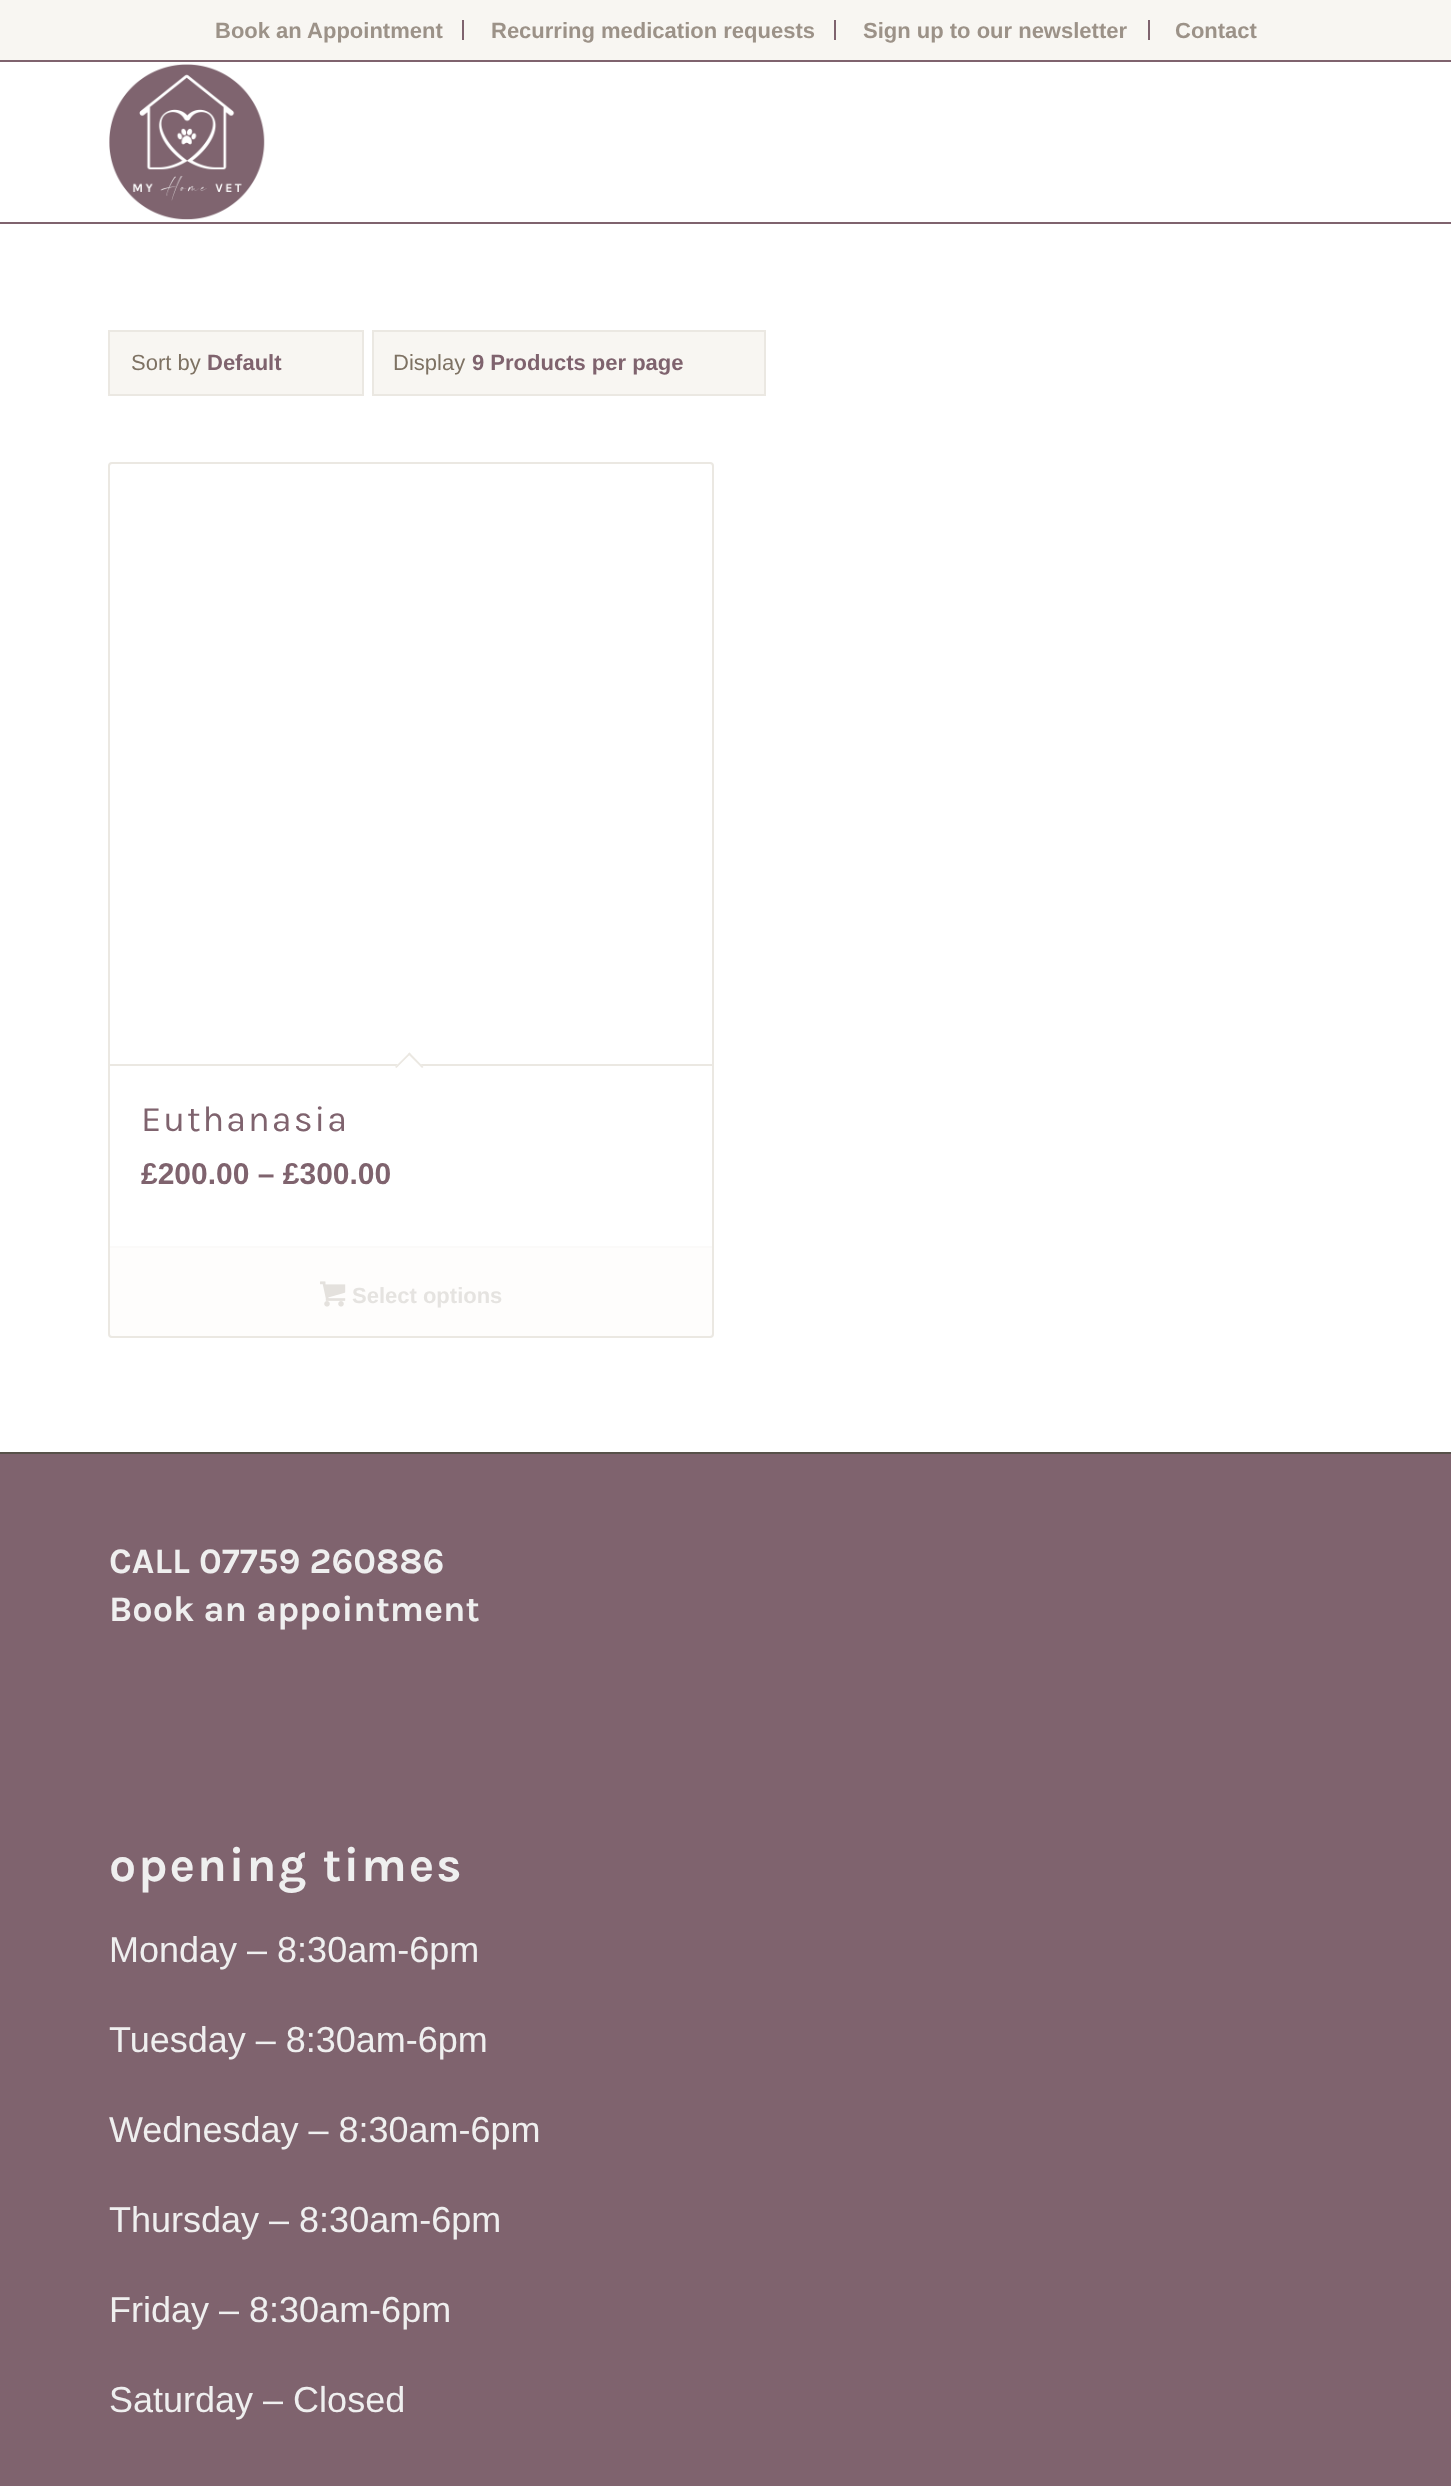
async function draw(canvas) {
  canvas.width = 1451
  canvas.height = 2486
  const ctx = canvas.getContext('2d')
  ctx.miterLimit = 4
  ctx.fontKerning = 'normal'
  async function loadImage(src) {
    const img = new Image()
    img.src = src
    await img.decode()
    return img
  }

  ctx.fillStyle = '#fff'
  ctx.fillRect(0, 0, 1451, 2486)
  ctx.fillStyle = '#f8f6f2'
  ctx.fillRect(0, 0, 1451, 60)
  ctx.fillStyle = '#7f636e'
  ctx.fillRect(0, 60, 1451, 2)
  ctx.fillRect(462, 20, 2, 20)
  ctx.font = 'bold 22px Liberation Sans'
  ctx.fillStyle = '#9c9288'
  ctx.fillText('Book an Appointment', 215, 38)
  ctx.fillStyle = '#7f636e'
  ctx.fillRect(834, 20, 2, 20)
  ctx.fillStyle = '#9c9288'
  ctx.fillText('Recurring medication requests', 491, 38)
  ctx.fillStyle = '#7f636e'
  ctx.fillRect(1148, 20, 2, 20)
  ctx.fillStyle = '#9c9288'
  ctx.fillText('Sign up to our newsletter', 863, 38)
  ctx.fillText('Contact', 1175, 38)
  ctx.fillStyle = '#7f636e'
  ctx.fillRect(0, 222, 1451, 2)
  ctx.drawImage(await loadImage('image0.png'), 109, 64, 156, 156)
  ctx.fillStyle = '#f8f6f2'
  ctx.beginPath()
  ctx.rect(109, 331, 254, 64)
  ctx.fill()
  ctx.strokeStyle = '#ebe8e2'
  ctx.lineWidth = 2
  ctx.stroke()
  ctx.font = '22px Liberation Sans'
  ctx.fillStyle = '#7e7263'
  ctx.fillText('Sort by', 131, 370)
  ctx.font = 'bold 22px Liberation Sans'
  ctx.fillStyle = '#7f636e'
  ctx.fillText('Default', 207, 370)
  ctx.fillStyle = '#f8f6f2'
  ctx.beginPath()
  ctx.rect(373, 331, 392, 64)
  ctx.fill()
  ctx.stroke()
  ctx.font = '22px Liberation Sans'
  ctx.fillStyle = '#7e7263'
  ctx.fillText('Display', 393, 370)
  ctx.font = 'bold 22px Liberation Sans'
  ctx.fillStyle = '#7f636e'
  ctx.fillText('9 Products per page', 472, 370)
  ctx.beginPath()
  ctx.roundRect(109, 463, 604, 874, 3)
  ctx.stroke()
  ctx.fillStyle = '#ebe8e2'
  ctx.fillRect(110, 1064, 602, 2)
  ctx.fillStyle = '#fff'
  ctx.beginPath()
  ctx.moveTo(409.5, 1052.5)
  ctx.lineTo(423.5, 1067)
  ctx.lineTo(409.5, 1081)
  ctx.lineTo(395, 1067)
  ctx.closePath()
  ctx.fill()
  ctx.fillStyle = '#ebe8e2'
  ctx.beginPath()
  ctx.moveTo(409.5, 1052.5)
  ctx.lineTo(423.5, 1067)
  ctx.lineTo(422, 1068)
  ctx.lineTo(408, 1054)
  ctx.closePath()
  ctx.fill()
  ctx.beginPath()
  ctx.moveTo(409.5, 1052.5)
  ctx.lineTo(410.5, 1054)
  ctx.lineTo(396.5, 1068)
  ctx.lineTo(395, 1067)
  ctx.closePath()
  ctx.fill()
  ctx.letterSpacing = '2px'
  ctx.font = '36px Karla'
  ctx.fillStyle = '#7f636e'
  ctx.fillText('Euthanasia', 141, 1131)
  ctx.letterSpacing = '0px'
  ctx.font = 'bold 30px Liberation Sans'
  ctx.fillText('£200.00 – £300.00', 141, 1184)
  ctx.fillStyle = '#f8f6f233'
  ctx.beginPath()
  ctx.roundRect(110, 1246, 602, 90, [0, 0, 2, 2])
  ctx.fill()
  ctx.fillStyle = '#fbfaf9'
  ctx.fillRect(110, 1246, 602, 2)
  ctx.drawImage(await loadImage('image1.png'), 320, 1281, 26, 26)
  ctx.font = 'bold 22px Liberation Sans'
  ctx.fillStyle = '#e5e3e0'
  ctx.fillText('Select options', 352, 1303)
  ctx.fillStyle = '#7f636e'
  ctx.fillRect(0, 1454, 1451, 1032)
  ctx.fillStyle = '#575149'
  ctx.fillRect(0, 1452, 1451, 2)
  ctx.font = 'bold 36px Karla'
  ctx.fillStyle = '#efefef'
  ctx.fillText('CALL 07759 260886', 109, 1573)
  ctx.fillText('Book an appointment', 109, 1621)
  ctx.letterSpacing = '2px'
  ctx.font = 'bold 48px Karla'
  ctx.fillText('opening times', 109, 1881)
  ctx.letterSpacing = '0px'
  ctx.font = '36px Liberation Sans'
  ctx.fillText('Monday – 8:30am-6pm', 109, 1962)
  ctx.fillText('Tuesday – 8:30am-6pm', 109, 2052)
  ctx.fillText('Wednesday – 8:30am-6pm', 109, 2142)
  ctx.fillText('Thursday – 8:30am-6pm', 109, 2232)
  ctx.fillText('Friday – 8:30am-6pm', 109, 2322)
  ctx.fillText('Saturday – Closed', 109, 2412)
}

draw(document.querySelector('canvas'))
